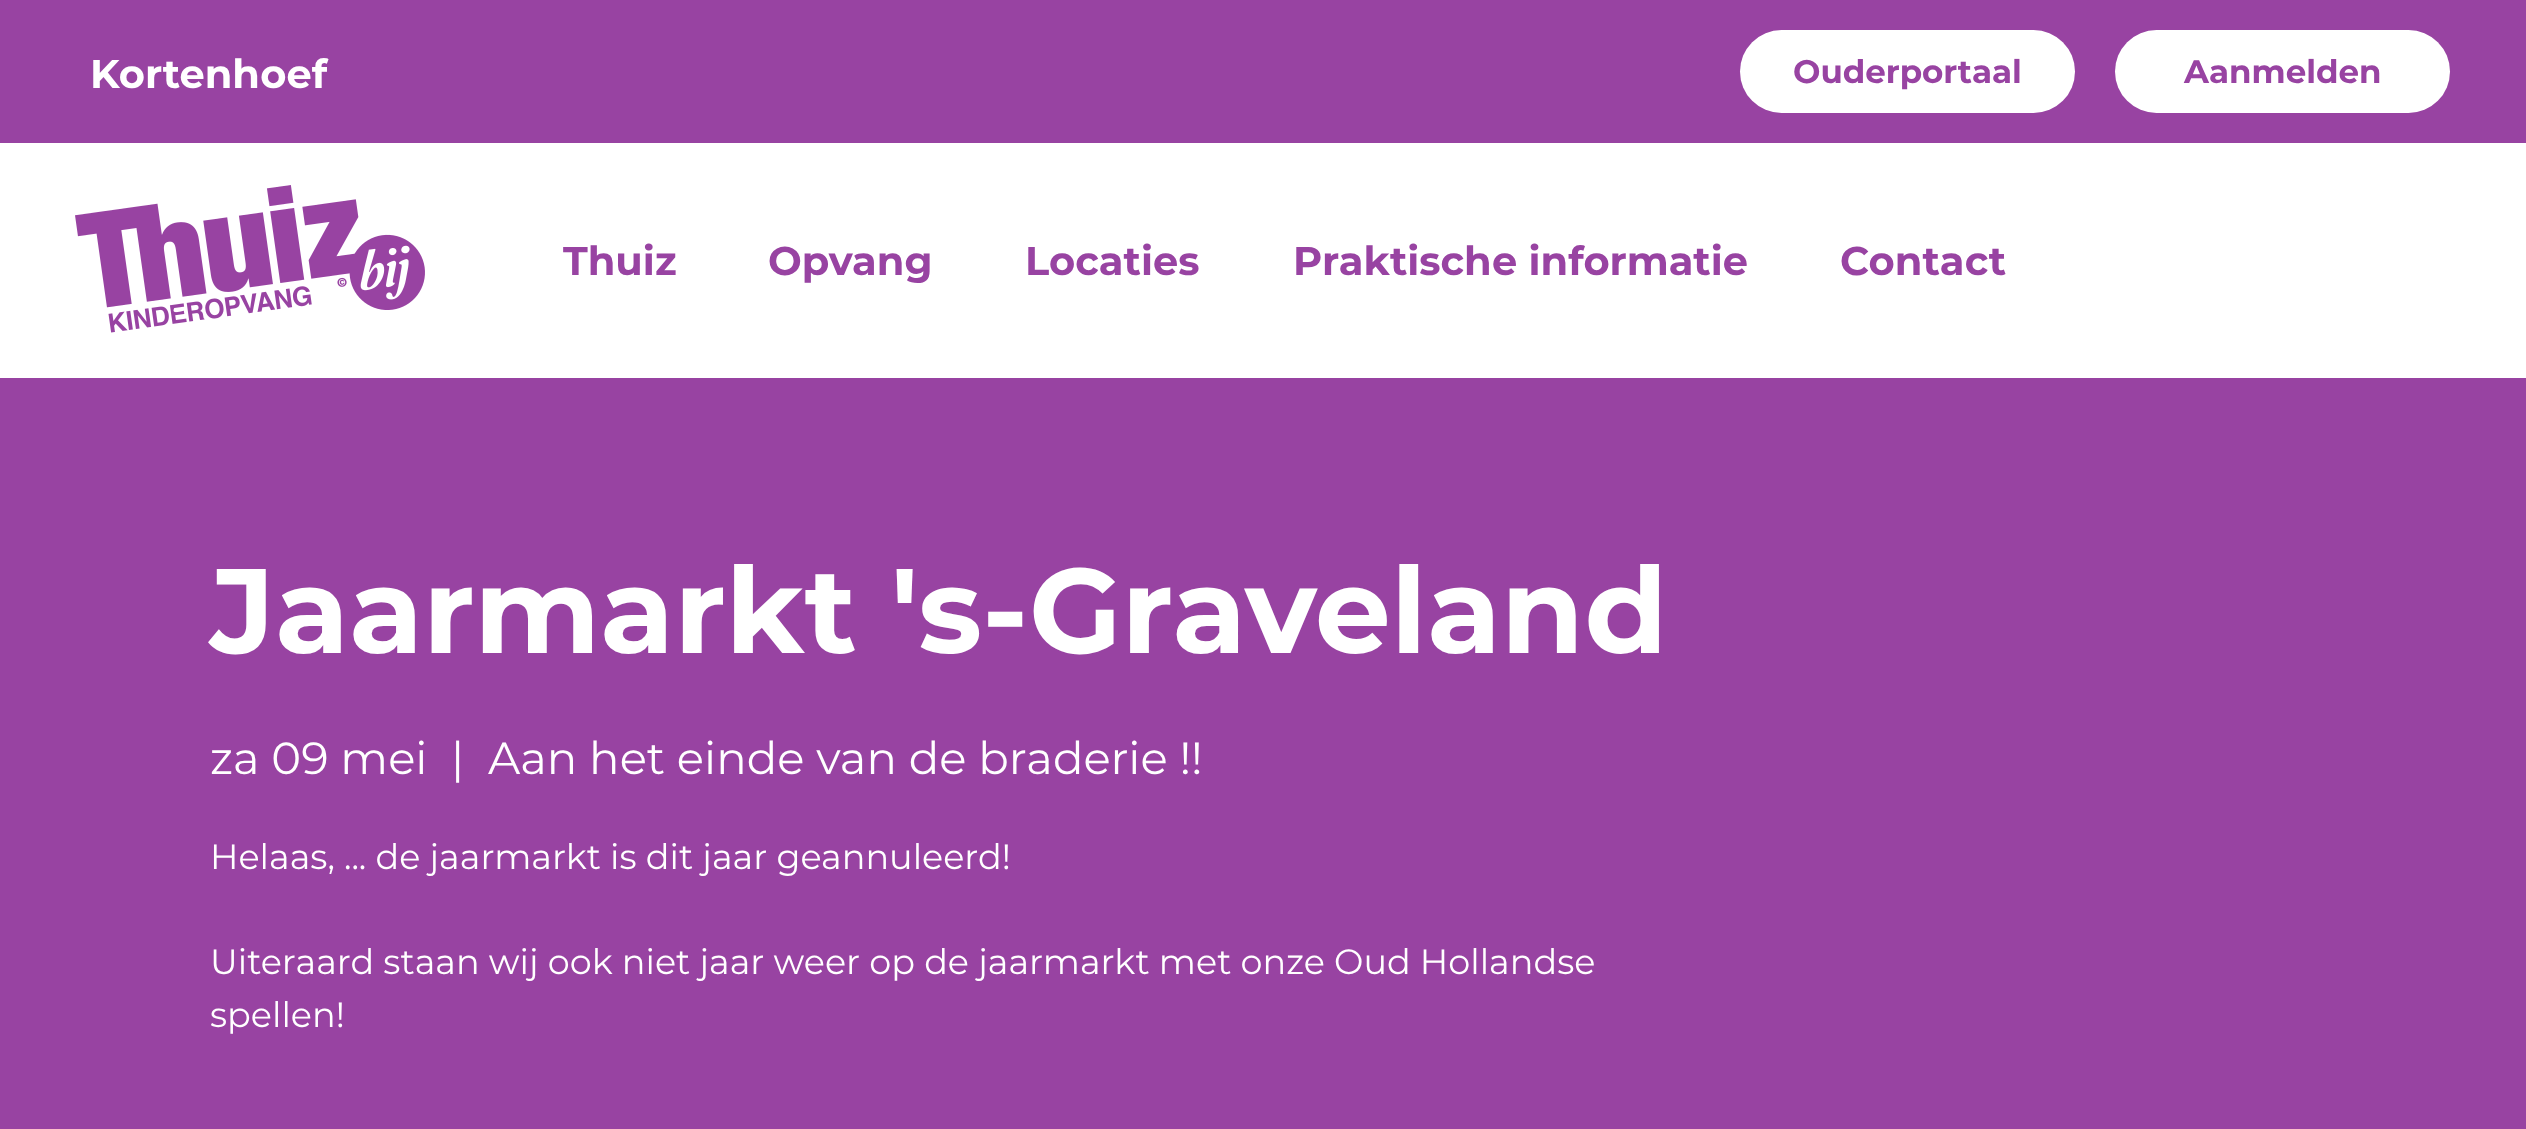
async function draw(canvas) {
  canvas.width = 2526
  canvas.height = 1129
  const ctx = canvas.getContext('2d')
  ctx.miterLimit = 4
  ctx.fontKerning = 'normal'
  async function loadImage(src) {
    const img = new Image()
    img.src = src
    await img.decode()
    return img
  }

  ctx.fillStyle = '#fff'
  ctx.fillRect(0, 0, 2526, 1129)
  ctx.fillStyle = '#9843a2'
  ctx.fillRect(0, 0, 2526, 143)
  ctx.font = 'bold 40px Montserrat'
  ctx.fillStyle = '#fff'
  ctx.fillText('Kortenhoef', 90, 88)
  ctx.beginPath()
  ctx.roundRect(1740, 30, 335, 83, 41.5)
  ctx.fill()
  ctx.font = 'bold 32.5px Montserrat'
  ctx.fillStyle = '#9843a2'
  ctx.fillText('Ouderportaal', 1793, 83)
  ctx.fillStyle = '#fff'
  ctx.beginPath()
  ctx.roundRect(2115, 30, 335, 83, 41.5)
  ctx.fill()
  ctx.fillStyle = '#9843a2'
  ctx.fillText('Aanmelden', 2184, 83)
  ctx.drawImage(await loadImage('image0.png'), 75, 185, 350, 148)
  ctx.font = 'bold 40px Montserrat'
  ctx.fillText('Thuiz', 563, 275)
  ctx.fillText('Opvang', 768, 275)
  ctx.fillText('Locaties', 1025, 275)
  ctx.fillText('Praktische informatie', 1293, 275)
  ctx.fillText('Contact', 1840, 275)
  ctx.fillRect(0, 378, 2526, 751)
  ctx.font = 'bold 120px Montserrat'
  ctx.fillStyle = '#fff'
  ctx.fillText('Jaarmarkt \'s-Graveland', 210, 653)
  ctx.font = '45px Montserrat'
  ctx.fillText('za 09 mei', 210, 774)
  ctx.fillText('|', 451, 774)
  ctx.fillText('Aan het einde van de braderie !!', 488, 774)
  ctx.font = '35px Montserrat'
  ctx.fillText('Helaas, ... de jaarmarkt is dit jaar geannuleerd!', 210, 869)
  ctx.fillText('Uiteraard staan wij ook niet jaar weer op de jaarmarkt met onze Oud Hollandse', 210, 974)
  ctx.fillText('spellen!', 210, 1027)
}

draw(document.querySelector('canvas'))
